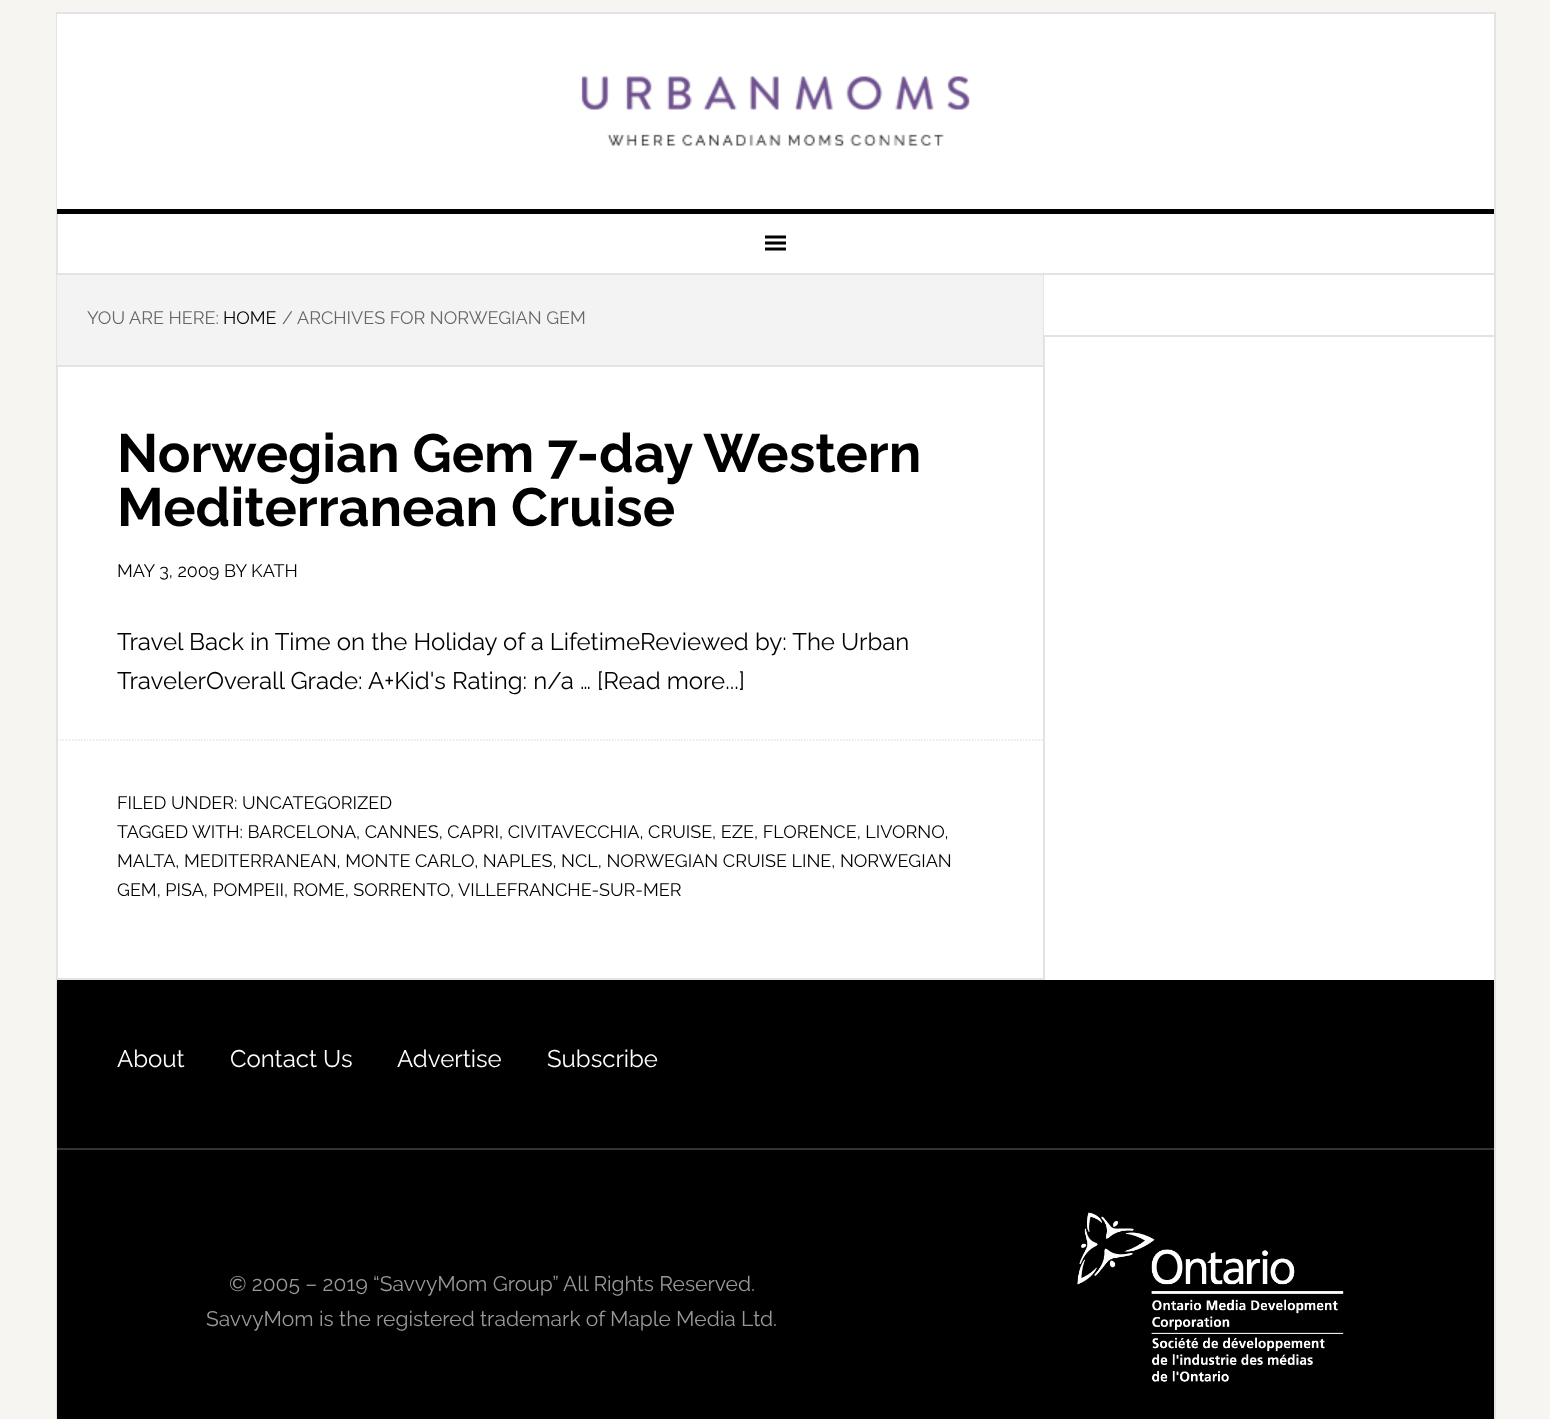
async function draw(canvas) {
  canvas.width = 1550
  canvas.height = 1419
  const ctx = canvas.getContext('2d')
  ctx.miterLimit = 4
  ctx.fontKerning = 'normal'
  async function loadImage(src) {
    const img = new Image()
    img.src = src
    await img.decode()
    return img
  }

  ctx.fillStyle = '#f6f5f2'
  ctx.fillRect(0, 0, 1550, 1419)
  ctx.fillStyle = '#fff'
  ctx.fillRect(58, 214, 1436, 766)
  ctx.strokeStyle = '#e3e3e3'
  ctx.lineWidth = 2
  ctx.strokeRect(57, 13, 1438, 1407)
  ctx.fillRect(57, 14, 1437, 195)
  ctx.fillStyle = '#000'
  ctx.fillRect(57, 209, 1437, 5)
  ctx.drawImage(await loadImage('image0.png'), 581, 76, 389, 70)
  ctx.fillStyle = '#e3e3e3'
  ctx.fillRect(57, 273, 1437, 2)
  ctx.drawImage(await loadImage('image1.png'), 765, 235, 21, 16)
  ctx.fillRect(1043, 275, 2, 705)
  ctx.fillStyle = '#f3f3f3'
  ctx.fillRect(57, 275, 986, 90)
  ctx.fillStyle = '#e3e3e3'
  ctx.fillRect(57, 365, 986, 2)
  ctx.font = '18px Raleway'
  ctx.fillStyle = '#666'
  ctx.fillText('YOU ARE HERE:', 87, 324)
  ctx.fillStyle = '#000'
  ctx.fillText('HOME', 223, 324)
  ctx.fillStyle = '#666'
  ctx.fillText('/', 282, 324)
  ctx.fillText('ARCHIVES FOR NORWEGIAN GEM', 297, 324)
  ctx.fillStyle = '#e3e3e3'
  ctx.fillRect(57, 978, 986, 2)
  ctx.font = 'bold 54px Raleway'
  ctx.fillStyle = '#000'
  ctx.fillText('Norwegian Gem 7-day Western', 117, 472)
  ctx.fillText('Mediterranean Cruise', 117, 526)
  ctx.font = '18px Raleway'
  ctx.fillText('MAY 3, 2009 BY KATH', 117, 577)
  ctx.font = '24px Raleway'
  ctx.fillText('Travel Back in Time on the Holiday of a LifetimeReviewed by: The Urban', 117, 650)
  ctx.fillText('TravelerOverall Grade: A+Kid\'s Rating: n/a … [Read more...]', 117, 689)
  ctx.beginPath()
  ctx.moveTo(57, 740)
  ctx.lineTo(1042.5, 740)
  ctx.lineWidth = 1.5
  ctx.setLineDash([1.5, 1.5])
  ctx.stroke()
  ctx.font = '18px Raleway'
  ctx.fillText('FILED UNDER: UNCATEGORIZED', 117, 809)
  ctx.fillText('TAGGED WITH: BARCELONA, CANNES, CAPRI, CIVITAVECCHIA, CRUISE, EZE, FLORENCE, LIVORNO,', 117, 838)
  ctx.fillText('MALTA, MEDITERRANEAN, MONTE CARLO, NAPLES, NCL, NORWEGIAN CRUISE LINE, NORWEGIAN', 117, 867)
  ctx.fillText('GEM, PISA, POMPEII, ROME, SORRENTO,', 117, 896)
  ctx.fillText('VILLEFRANCHE-SUR-MER', 458, 896)
  ctx.fillStyle = '#fff'
  ctx.fillRect(1044, 275, 1, 60)
  ctx.fillStyle = '#e3e3e3'
  ctx.fillRect(1044, 335, 450, 2)
  ctx.fillStyle = '#000'
  ctx.fillRect(57, 980, 1437, 168)
  ctx.font = '24px Raleway'
  ctx.fillStyle = '#fff'
  ctx.fillText('About', 117, 1067)
  ctx.fillText('Contact Us', 230, 1067)
  ctx.fillText('Advertise', 397, 1067)
  ctx.fillText('Subscribe', 547, 1067)
  ctx.fillStyle = '#000'
  ctx.fillRect(57, 1150, 1437, 269)
  ctx.fillStyle = '#333'
  ctx.fillRect(57, 1148, 1437, 2)
  ctx.font = '21px Raleway'
  ctx.fillStyle = '#999'
  ctx.fillText('© 2005 – 2019 “SavvyMom Group” All Rights Reserved.', 229, 1291)
  ctx.fillText('SavvyMom is the registered trademark of Maple Media Ltd.', 206, 1326)
  ctx.drawImage(await loadImage('image2.png'), 1077, 1212, 267, 170)
}

draw(document.querySelector('canvas'))
